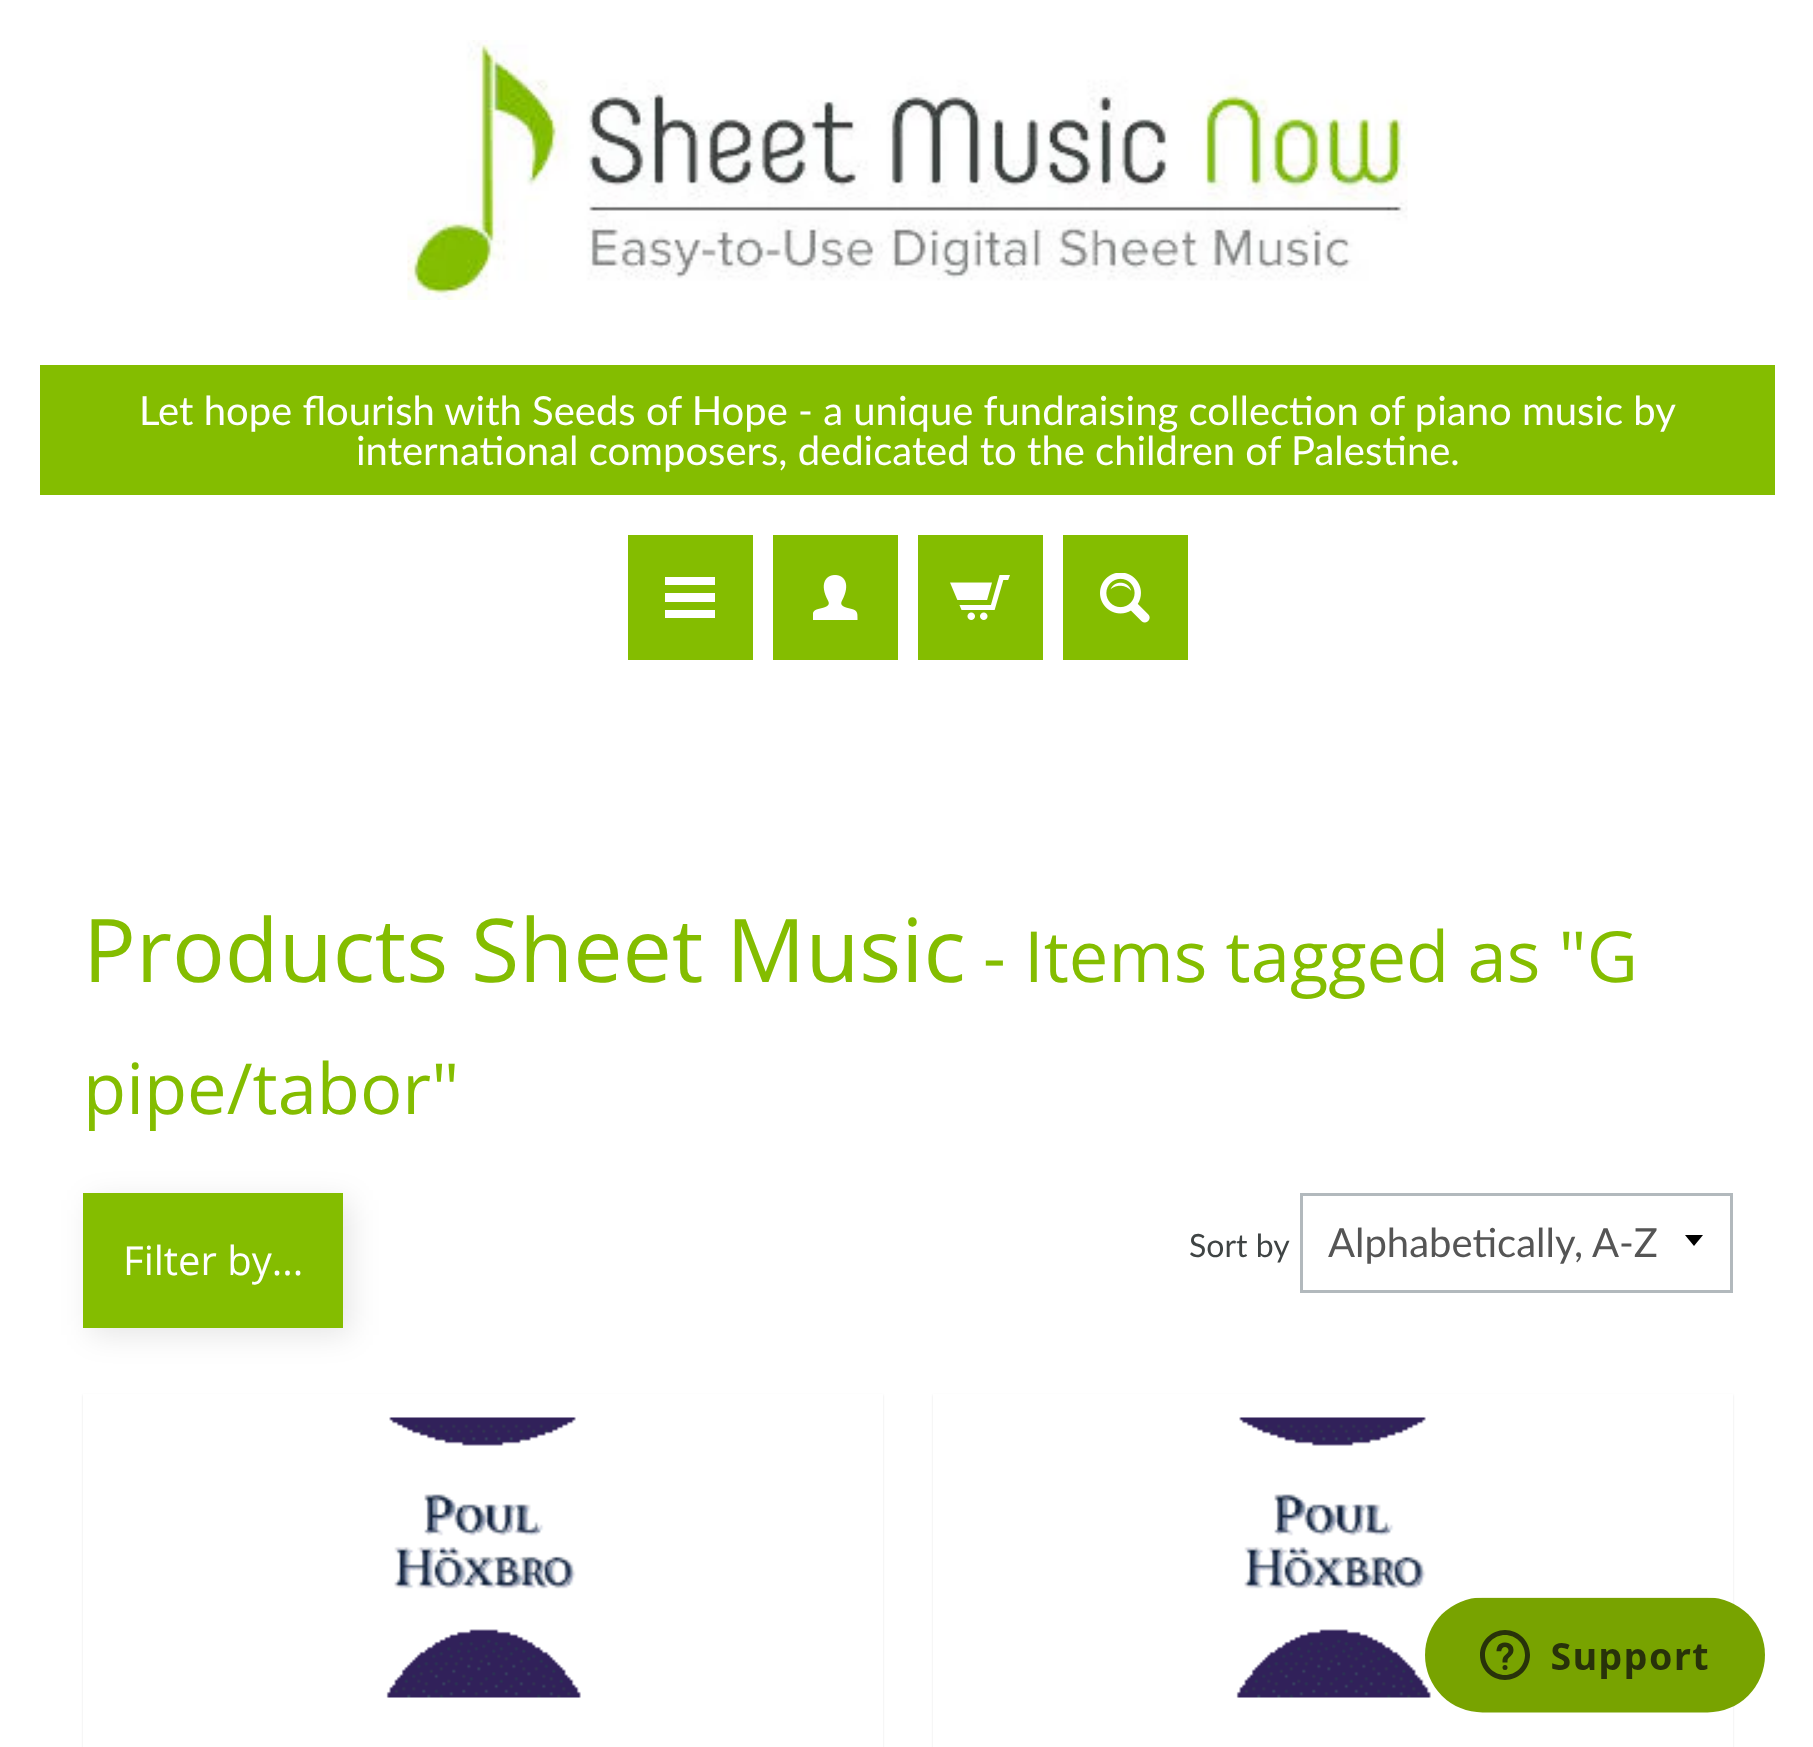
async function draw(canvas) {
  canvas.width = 1813
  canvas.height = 1747
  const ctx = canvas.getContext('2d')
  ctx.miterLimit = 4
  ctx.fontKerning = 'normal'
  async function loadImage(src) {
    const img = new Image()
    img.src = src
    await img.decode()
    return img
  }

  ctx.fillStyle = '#fff'
  ctx.fillRect(0, 0, 1813, 1747)
  ctx.drawImage(await loadImage('image0.png'), 407, 40, 1001, 260)
  ctx.fillStyle = '#84bd00'
  ctx.fillRect(40, 365, 1735, 130)
  ctx.font = '40px Lato'
  ctx.fillStyle = '#fff'
  ctx.fillText('Let hope flourish with Seeds of Hope - a unique fundraising collection of piano music by', 139, 425)
  ctx.fillText('international composers, dedicated to the children of Palestine.', 356, 465)
  ctx.fillStyle = '#84bd00'
  ctx.fillRect(628, 535, 125, 125)
  ctx.fillStyle = '#fff'
  ctx.beginPath()
  ctx.moveTo(715, 585)
  ctx.lineTo(665, 585)
  ctx.lineTo(665, 577)
  ctx.lineTo(715, 577)
  ctx.closePath()
  ctx.moveTo(715, 593)
  ctx.lineTo(665, 593)
  ctx.lineTo(665, 602)
  ctx.lineTo(715, 602)
  ctx.closePath()
  ctx.moveTo(715, 610)
  ctx.lineTo(665, 610)
  ctx.lineTo(665, 618)
  ctx.lineTo(715, 618)
  ctx.closePath()
  ctx.fill()
  ctx.fillStyle = '#84bd00'
  ctx.fillRect(773, 535, 125, 125)
  ctx.drawImage(await loadImage('image1.png'), 813, 575, 45, 45)
  ctx.fillRect(918, 535, 125, 125)
  ctx.drawImage(await loadImage('image2.png'), 950, 575, 60, 45)
  ctx.fillRect(1063, 535, 125, 125)
  ctx.drawImage(await loadImage('image3.png'), 1100, 573, 50, 50)
  ctx.font = '88px Open Sans'
  ctx.fillText('Products Sheet Music', 83, 982)
  ctx.font = '70.5px Open Sans'
  ctx.fillText('- Items tagged as "G', 983, 982)
  ctx.fillText('pipe/tabor"', 83, 1114)
  ctx.fillStyle = '#0000001a'
  ctx.filter = 'blur(15px)'
  ctx.beginPath()
  ctx.rect(90, 1200, 260, 135)
  ctx.fill()
  ctx.filter = 'none'
  ctx.fillStyle = '#84bd00'
  ctx.fillRect(83, 1193, 260, 135)
  ctx.font = '40px Open Sans'
  ctx.fillStyle = '#fff'
  ctx.fillText('Filter by...', 123, 1275)
  ctx.font = '32px Lato'
  ctx.fillStyle = '#3f4444'
  ctx.fillText('Sort by', 1189, 1257)
  ctx.fillStyle = '#000'
  ctx.beginPath()
  ctx.moveTo(1685, 1235)
  ctx.lineTo(1694, 1246)
  ctx.lineTo(1703, 1235)
  ctx.closePath()
  ctx.fill()
  ctx.strokeStyle = '#b2b9bd'
  ctx.lineWidth = 3
  ctx.strokeRect(1301.5, 1194.5, 430, 97)
  ctx.font = '40px Lato'
  ctx.fillStyle = '#555'
  ctx.fillText('Alphabetically, A-Z', 1328, 1257)
  ctx.fillStyle = '#0000001a'
  ctx.filter = 'blur(1px)'
  ctx.beginPath()
  ctx.rect(83, 1395, 800, 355)
  ctx.fill()
  ctx.filter = 'none'
  ctx.fillStyle = '#fff'
  ctx.fillRect(83, 1394, 800, 353)
  ctx.drawImage(await loadImage('image4.png'), 386, 1417, 195, 281)
  ctx.fillStyle = '#0000001a'
  ctx.filter = 'blur(1px)'
  ctx.beginPath()
  ctx.rect(933, 1395, 800, 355)
  ctx.fill()
  ctx.filter = 'none'
  ctx.fillStyle = '#fff'
  ctx.fillRect(933, 1394, 800, 353)
  ctx.drawImage(await loadImage('image4.png'), 1236, 1417, 195, 281)
  ctx.drawImage(await loadImage('image5.png'), 1425, 1597, 340, 116)
}

draw(document.querySelector('canvas'))
